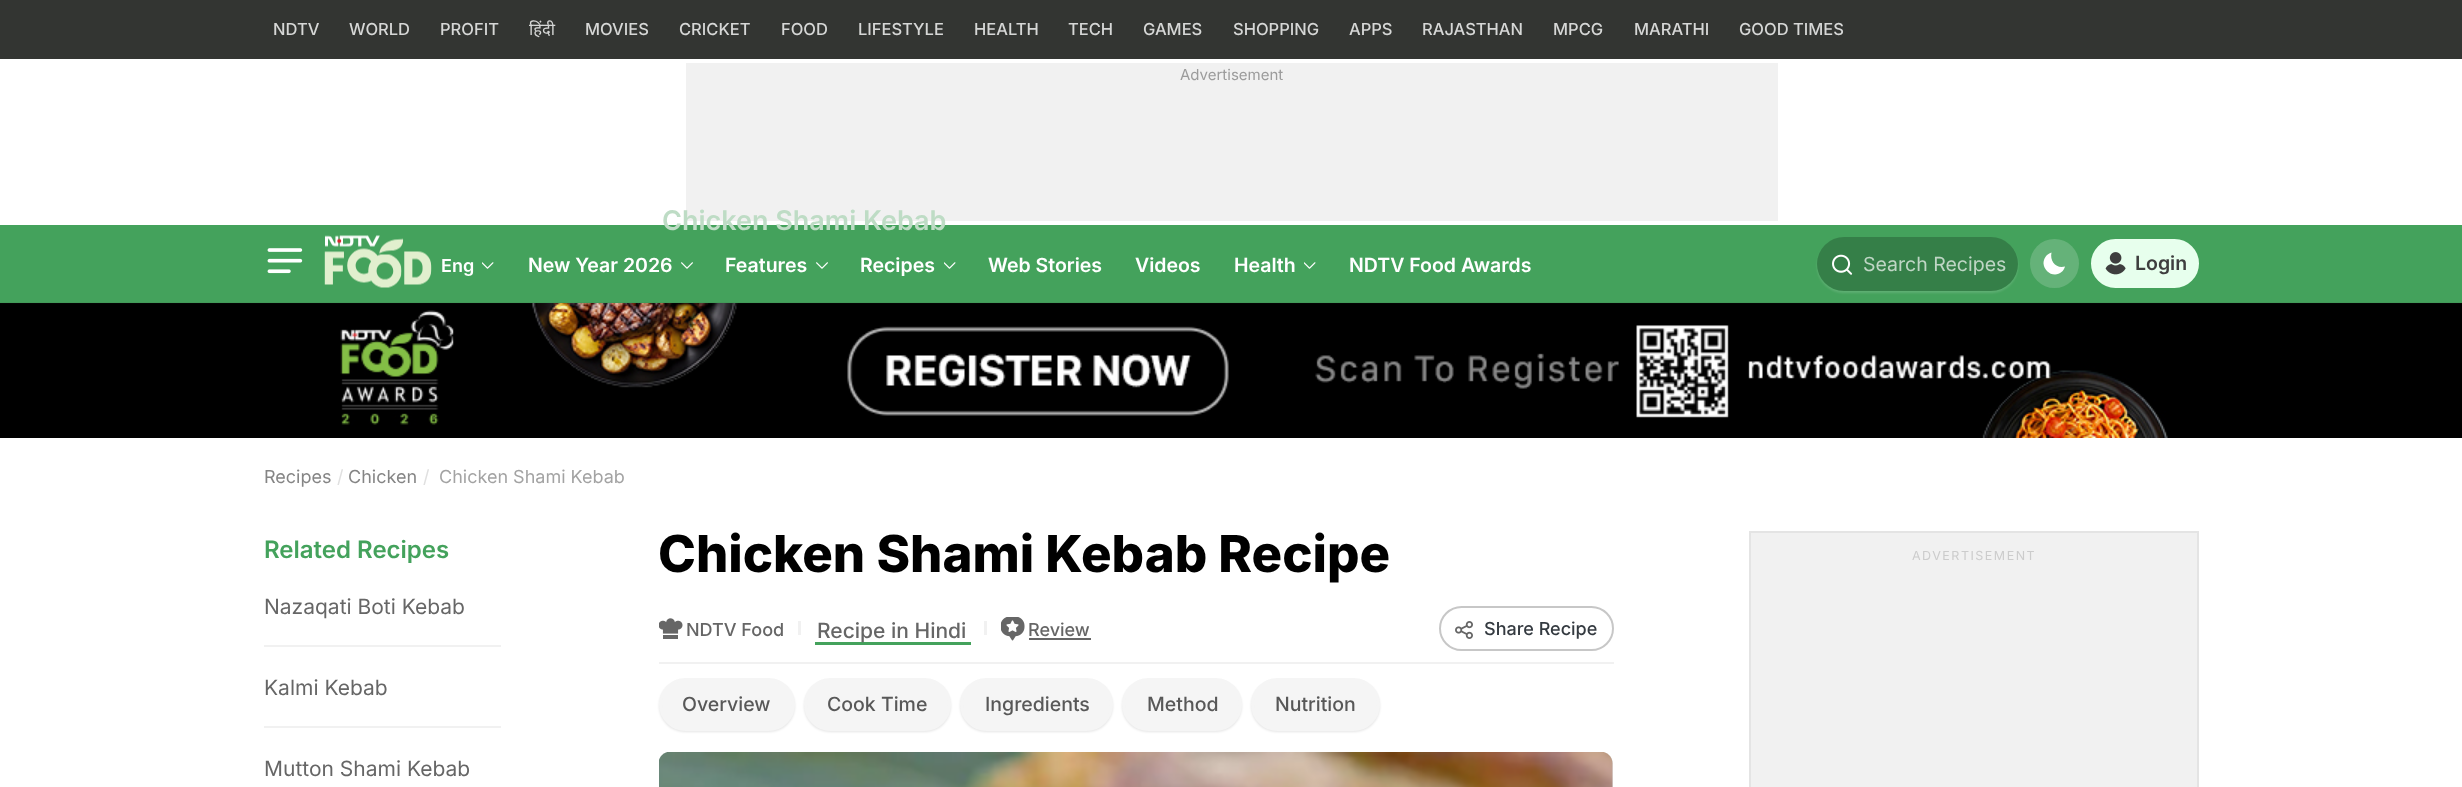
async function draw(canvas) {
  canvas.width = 2462
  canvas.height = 787
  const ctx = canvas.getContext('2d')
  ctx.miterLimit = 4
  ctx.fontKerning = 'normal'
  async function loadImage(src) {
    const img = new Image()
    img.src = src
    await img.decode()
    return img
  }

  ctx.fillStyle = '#fff'
  ctx.fillRect(0, 0, 2462, 787)
  ctx.fillStyle = '#333532'
  ctx.fillRect(0, 0, 2462, 59)
  ctx.font = '500 16.5px Inter'
  ctx.fillStyle = '#d6d7d6'
  ctx.fillText('NDTV', 273, 35)
  ctx.fillText('WORLD', 349, 35)
  ctx.fillText('PROFIT', 440, 35)
  ctx.font = '16.5px Noto Sans'
  ctx.fillText('हिंदी', 529, 35)
  ctx.font = '500 16.5px Inter'
  ctx.fillText('MOVIES', 585, 35)
  ctx.fillText('CRICKET', 679, 35)
  ctx.fillText('FOOD', 781, 35)
  ctx.fillText('LIFESTYLE', 858, 35)
  ctx.fillText('HEALTH', 974, 35)
  ctx.fillText('TECH', 1068, 35)
  ctx.fillText('GAMES', 1143, 35)
  ctx.fillText('SHOPPING', 1233, 35)
  ctx.fillText('APPS', 1349, 35)
  ctx.fillText('RAJASTHAN', 1422, 35)
  ctx.fillText('MPCG', 1553, 35)
  ctx.fillText('MARATHI', 1634, 35)
  ctx.fillText('GOOD TIMES', 1739, 35)
  ctx.fillStyle = '#f1f1f1'
  ctx.fillRect(686, 63, 1092, 158)
  ctx.font = '15px Inter'
  ctx.fillStyle = '#9c9c9c'
  ctx.fillText('Advertisement', 1180, 80)
  ctx.fillStyle = '#44a25c'
  ctx.fillRect(0, 225, 2462, 78)
  ctx.fillStyle = '#000'
  ctx.fillRect(0, 303, 2462, 135)
  ctx.drawImage(await loadImage('image6.png'), 340, 303, 1828, 135)
  ctx.fillStyle = '#33333312'
  ctx.fillRect(0, 302, 2462, 2)
  ctx.font = '600 27px Inter'
  ctx.fillStyle = '#bedcc5'
  ctx.fillText('Chicken Shami Kebab', 662, 230)
  ctx.drawImage(await loadImage('image0.png'), 267, 248, 36, 26)
  ctx.drawImage(await loadImage('image1.png'), 324, 235, 108, 53)
  ctx.font = '600 18px Inter'
  ctx.fillStyle = '#fff'
  ctx.fillText('Eng', 441, 272)
  ctx.drawImage(await loadImage('image2.png'), 482, 262, 12, 7)
  ctx.font = '600 19.5px Inter'
  ctx.fillText('New Year 2026', 528, 272)
  ctx.drawImage(await loadImage('image3.png'), 681, 262, 12, 7)
  ctx.fillText('Features', 725, 272)
  ctx.drawImage(await loadImage('image3.png'), 816, 262, 12, 7)
  ctx.fillText('Recipes', 860, 272)
  ctx.drawImage(await loadImage('image2.png'), 944, 262, 12, 7)
  ctx.fillText('Web Stories', 988, 272)
  ctx.fillText('Videos', 1135, 272)
  ctx.fillText('Health', 1234, 272)
  ctx.drawImage(await loadImage('image2.png'), 1304, 262, 12, 7)
  ctx.fillText('NDTV Food Awards', 1349, 272)
  ctx.save()
  ctx.beginPath()
  ctx.moveTo(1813, 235)
  ctx.lineTo(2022, 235)
  ctx.lineTo(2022, 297)
  ctx.lineTo(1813, 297)
  ctx.closePath()
  ctx.moveTo(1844, 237)
  ctx.lineTo(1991, 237)
  ctx.bezierCurveTo(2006, 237, 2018, 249, 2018, 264)
  ctx.bezierCurveTo(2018, 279, 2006, 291, 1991, 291)
  ctx.lineTo(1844, 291)
  ctx.bezierCurveTo(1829, 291, 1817, 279, 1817, 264)
  ctx.bezierCurveTo(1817, 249, 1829, 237, 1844, 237)
  ctx.closePath()
  ctx.clip('evenodd')
  ctx.fillStyle = '#ffffff24'
  ctx.filter = 'blur(1px)'
  ctx.beginPath()
  ctx.roundRect(1817, 239, 201, 54, 27)
  ctx.fill()
  ctx.filter = 'none'
  ctx.restore()
  ctx.fillStyle = '#00000036'
  ctx.beginPath()
  ctx.roundRect(1817, 237, 201, 54, 27)
  ctx.fill()
  ctx.drawImage(await loadImage('image4.png'), 1832, 254, 21, 21)
  ctx.font = '19.5px Inter'
  ctx.fillStyle = '#bfd6c5'
  ctx.fillText('Search Recipes', 1863, 271)
  ctx.fillStyle = '#ffffff2e'
  ctx.beginPath()
  ctx.arc(2054.5, 263.5, 24.5, 0, 2 * Math.PI)
  ctx.fill()
  ctx.fillStyle = '#fff'
  ctx.beginPath()
  ctx.moveTo(2065, 266.5)
  ctx.bezierCurveTo(2056.5, 269, 2049.5, 261.5, 2051.5, 252.5)
  ctx.bezierCurveTo(2046.5, 254, 2043.5, 258.5, 2043.5, 263.5)
  ctx.bezierCurveTo(2044, 269.5, 2049, 274.5, 2055, 274.5)
  ctx.bezierCurveTo(2060, 274, 2064, 271, 2065, 266.5)
  ctx.closePath()
  ctx.fill()
  ctx.fillStyle = '#e7ffed'
  ctx.beginPath()
  ctx.roundRect(2092.5, 240.5, 105, 46, 23)
  ctx.fill()
  ctx.strokeStyle = '#e8ffed'
  ctx.lineWidth = 3
  ctx.stroke()
  ctx.drawImage(await loadImage('image5.png'), 2105, 252, 21, 23)
  ctx.font = '600 19.5px Inter'
  ctx.fillStyle = '#3e3e3e'
  ctx.fillText('Login', 2135, 270)
  ctx.font = '18px Inter'
  ctx.fillStyle = '#858585'
  ctx.fillText('Recipes', 264, 483)
  ctx.fillStyle = '#e0e0e0'
  ctx.fillText('/', 337, 483)
  ctx.fillStyle = '#858585'
  ctx.fillText('Chicken', 348, 483)
  ctx.fillStyle = '#e0e0e0'
  ctx.fillText('/', 423, 483)
  ctx.fillStyle = '#a3a3a3'
  ctx.fillText('Chicken Shami Kebab', 439, 483)
  ctx.font = '600 24px Inter'
  ctx.fillStyle = '#44a25c'
  ctx.fillText('Related Recipes', 264, 558)
  ctx.fillStyle = '#f1f1f1'
  ctx.fillRect(264, 645, 237, 2)
  ctx.font = '21px Inter'
  ctx.fillStyle = '#666'
  ctx.fillText('Nazaqati Boti Kebab', 264, 614)
  ctx.fillStyle = '#f1f1f1'
  ctx.fillRect(264, 726, 237, 2)
  ctx.fillStyle = '#666'
  ctx.fillText('Kalmi Kebab', 264, 695)
  ctx.fillText('Mutton Shami Kebab', 264, 776)
  ctx.font = '800 51px Inter'
  ctx.fillStyle = '#000'
  ctx.fillText('Chicken Shami Kebab Recipe', 658, 572)
  ctx.fillStyle = '#f1f1f1'
  ctx.fillRect(659, 662, 955, 2)
  ctx.drawImage(await loadImage('image7.png'), 659, 618, 24, 21)
  ctx.font = '500 18px Inter'
  ctx.fillStyle = '#666'
  ctx.fillText('NDTV Food', 686, 636)
  ctx.fillStyle = '#f1f1f1'
  ctx.fillRect(798, 621, 3, 14)
  ctx.fillStyle = '#44a25c'
  ctx.fillRect(815, 642, 156, 3)
  ctx.font = '500 21px Inter'
  ctx.fillStyle = '#666'
  ctx.fillText('Recipe in Hindi', 817, 638)
  ctx.fillStyle = '#f1f1f1'
  ctx.fillRect(984, 621, 3, 14)
  ctx.drawImage(await loadImage('image8.png'), 1001, 617, 24, 24)
  ctx.font = '500 18px Inter'
  ctx.fillStyle = '#666'
  ctx.fillText('Review', 1028, 636)
  ctx.fillRect(1029, 638, 62, 2)
  ctx.beginPath()
  ctx.roundRect(1440, 607, 173, 43, 21.5)
  ctx.strokeStyle = '#c7c7c7'
  ctx.lineWidth = 2
  ctx.stroke()
  ctx.drawImage(await loadImage('image9.png'), 1455, 621, 18, 18)
  ctx.fillStyle = '#343a40'
  ctx.fillText('Share Recipe', 1484, 635)
  ctx.fillStyle = '#0000001a'
  ctx.filter = 'blur(1px)'
  ctx.beginPath()
  ctx.roundRect(659, 680, 136, 52, 26)
  ctx.fill()
  ctx.filter = 'none'
  ctx.fillStyle = '#f5f5f5'
  ctx.beginPath()
  ctx.roundRect(660.5, 679.5, 133, 50, 25)
  ctx.fill()
  ctx.strokeStyle = '#f5f5f5'
  ctx.lineWidth = 3
  ctx.stroke()
  ctx.font = '500 19.5px Inter'
  ctx.fillStyle = '#585858'
  ctx.fillText('Overview', 682, 711)
  ctx.fillStyle = '#0000001a'
  ctx.filter = 'blur(1px)'
  ctx.beginPath()
  ctx.roundRect(804, 680, 147, 52, 26)
  ctx.fill()
  ctx.filter = 'none'
  ctx.fillStyle = '#f5f5f5'
  ctx.beginPath()
  ctx.roundRect(805.5, 679.5, 144, 50, 25)
  ctx.fill()
  ctx.stroke()
  ctx.fillStyle = '#585858'
  ctx.fillText('Cook Time', 827, 711)
  ctx.fillStyle = '#0000001a'
  ctx.filter = 'blur(1px)'
  ctx.beginPath()
  ctx.roundRect(960, 680, 153, 52, 26)
  ctx.fill()
  ctx.filter = 'none'
  ctx.fillStyle = '#f5f5f5'
  ctx.beginPath()
  ctx.roundRect(961.5, 679.5, 150, 50, 25)
  ctx.fill()
  ctx.stroke()
  ctx.fillStyle = '#585858'
  ctx.fillText('Ingredients', 985, 711)
  ctx.fillStyle = '#0000001a'
  ctx.filter = 'blur(1px)'
  ctx.beginPath()
  ctx.roundRect(1122, 680, 120, 52, 26)
  ctx.fill()
  ctx.filter = 'none'
  ctx.fillStyle = '#f5f5f5'
  ctx.beginPath()
  ctx.roundRect(1123.5, 679.5, 117, 50, 25)
  ctx.fill()
  ctx.stroke()
  ctx.fillStyle = '#585858'
  ctx.fillText('Method', 1147, 711)
  ctx.fillStyle = '#0000001a'
  ctx.filter = 'blur(1px)'
  ctx.beginPath()
  ctx.roundRect(1251, 680, 129, 52, 26)
  ctx.fill()
  ctx.filter = 'none'
  ctx.fillStyle = '#f5f5f5'
  ctx.beginPath()
  ctx.roundRect(1252.5, 679.5, 126, 50, 25)
  ctx.fill()
  ctx.stroke()
  ctx.fillStyle = '#585858'
  ctx.fillText('Nutrition', 1275, 711)
  ctx.beginPath()
  ctx.roundRect(660, 753, 952, 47, 11)
  ctx.strokeStyle = '#e5e7e8'
  ctx.lineWidth = 2
  ctx.stroke()
  ctx.drawImage(await loadImage('image10.png'), 659, 752, 954, 35)
  ctx.fillStyle = '#f1f1f1'
  ctx.beginPath()
  ctx.rect(1750, 532, 448, 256)
  ctx.fill()
  ctx.strokeStyle = '#e4e4e4'
  ctx.stroke()
  ctx.letterSpacing = '1.5px'
  ctx.font = '12.5px Inter'
  ctx.fillStyle = '#ccc'
  ctx.fillText('ADVERTISEMENT', 1912, 560)
}

draw(document.querySelector('canvas'))
